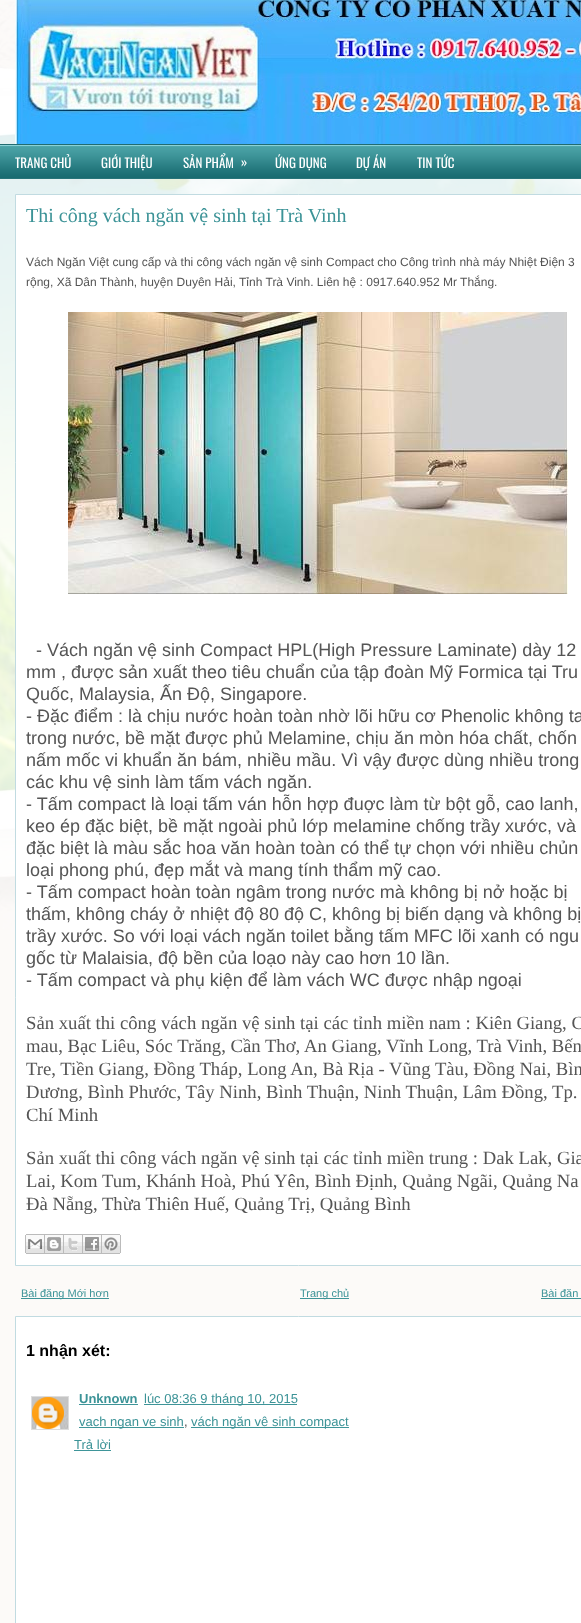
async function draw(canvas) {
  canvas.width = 581
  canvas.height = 1623
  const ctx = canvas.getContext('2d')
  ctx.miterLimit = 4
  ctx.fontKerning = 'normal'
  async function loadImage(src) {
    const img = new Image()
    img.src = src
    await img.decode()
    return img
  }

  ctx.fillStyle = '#eaded2'
  ctx.fillRect(0, 0, 581, 1623)
  ctx.drawImage(await loadImage('image0.png'), 0, 0, 581, 962)
  ctx.fillStyle = '#ffffffd9'
  ctx.fillRect(0, 0, 15, 144)
  ctx.drawImage(await loadImage('image1.png'), 15, 0, 566, 144)
  ctx.drawImage(await loadImage('image2.png'), 0, 145, 581, 34)
  ctx.fillStyle = '#226c71'
  ctx.fillRect(0, 144, 581, 1)
  ctx.font = '13px Oswald'
  ctx.fillStyle = '#fff'
  ctx.fillText('TRANG CHỦ', 15, 168)
  ctx.fillText('GIỚI THIỆU', 101, 168)
  ctx.fillText('SẢN PHẨM', 183, 168)
  ctx.fillText('»', 241, 167)
  ctx.fillText('ỨNG DỤNG', 275, 168)
  ctx.fillText('DỰ ÁN', 356, 168)
  ctx.fillText('TIN TỨC', 417, 168)
  ctx.fillStyle = '#ffffffd9'
  ctx.fillRect(0, 179, 581, 1444)
  ctx.fillStyle = '#fff'
  ctx.beginPath()
  ctx.rect(15.5, 194.5, 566, 1071)
  ctx.fill()
  ctx.strokeStyle = '#c1dbe1'
  ctx.stroke()
  ctx.font = '20px Liberation Serif'
  ctx.fillStyle = '#3c9397'
  ctx.fillText('Thi công vách ngăn vệ sinh tại Trà Vinh', 26, 222)
  ctx.font = '12px Liberation Sans'
  ctx.fillStyle = '#555'
  ctx.fillText('Vách Ngăn Việt cung cấp và thi công vách ngăn vệ sinh Compact cho Công trình nhà máy Nhiệt Điện 3', 26, 266)
  ctx.fillText('rộng, Xã Dân Thành, huyện Duyên Hải, Tỉnh Trà Vinh. Liên hệ : 0917.640.952 Mr Thắng.', 26, 286)
  ctx.drawImage(await loadImage('image3.png'), 68, 312, 500, 282)
  ctx.font = '18px Liberation Sans'
  ctx.fillText('- Vách ngăn vệ sinh Compact HPL(High Pressure Laminate) dày 12', 36, 656)
  ctx.fillText('mm , được sản xuất theo tiêu chuẩn của tập đoàn Mỹ Formica tại Tru', 26, 678)
  ctx.fillText('Quốc, Malaysia, Ấn Độ, Singapore.', 26, 700)
  ctx.fillText('- Đặc điểm : là chịu nước hoàn toàn nhờ lõi hữu cơ Phenolic không ta', 26, 722)
  ctx.fillText('trong nước, bề mặt được phủ Melamine, chịu ăn mòn hóa chất, chốn', 26, 744)
  ctx.fillText('nấm mốc vi khuẩn ăn bám, nhiều mầu. Vì vậy được dùng nhiều trong', 26, 766)
  ctx.fillText('các khu vệ sinh làm tấm vách ngăn.', 26, 788)
  ctx.fillText('- Tấm compact là loại tấm ván hỗn hợp đuợc làm từ bột gỗ, cao lanh,', 26, 810)
  ctx.fillText('keo ép đặc biệt, bề mặt ngoài phủ lớp melamine chống trầy xước, và', 26, 832)
  ctx.fillText('đặc biệt là màu sắc hoa văn hoàn toàn có thể tự chọn với nhiều chủn', 26, 854)
  ctx.fillText('loại phong phú, đẹp mắt và mang tính thẩm mỹ cao.', 26, 876)
  ctx.fillText('- Tấm compact hoàn toàn ngâm trong nước mà không bị nở hoặc bị', 26, 898)
  ctx.fillText('thấm, không cháy ở nhiệt độ 80 độ C, không bị biến dạng và không bị', 26, 920)
  ctx.fillText('trầy xước. So với loại vách ngăn toilet bằng tấm MFC lõi xanh có ngu', 26, 942)
  ctx.fillText('gốc từ Malaisia, độ bền của loạo này cao hơn 10 lần.', 26, 964)
  ctx.fillText('- Tấm compact và phụ kiện để làm vách WC được nhập ngoại', 26, 986)
  ctx.font = '18.7px Liberation Serif'
  ctx.fillText('Sản xuất thi công vách ngăn vệ sinh tại các tỉnh miền nam : Kiên Giang, C', 26, 1029)
  ctx.fillText('mau, Bạc Liêu, Sóc Trăng, Cần Thơ, An Giang, Vĩnh Long, Trà Vinh, Bến', 26, 1052)
  ctx.fillText('Tre, Tiền Giang, Đồng Tháp, Long An, Bà Rịa - Vũng Tàu, Đồng Nai, Bìn', 26, 1075)
  ctx.fillText('Dương, Bình Phước, Tây Ninh, Bình Thuận, Ninh Thuận, Lâm Đồng, Tp.', 26, 1098)
  ctx.fillText('Chí Minh', 26, 1121)
  ctx.fillText('Sản xuất thi công vách ngăn vệ sinh tại các tỉnh miền trung : Dak Lak, Gia', 26, 1164)
  ctx.fillText('Lai, Kom Tum, Khánh Hoà, Phú Yên, Bình Định, Quảng Ngãi, Quảng Na', 26, 1187)
  ctx.fillText('Đà Nẵng, Thừa Thiên Huế, Quảng Trị, Quảng Bình', 26, 1210)
  ctx.drawImage(await loadImage('image4.png'), 25, 1234, 20, 20)
  ctx.drawImage(await loadImage('image5.png'), 45, 1234, 19, 20)
  ctx.drawImage(await loadImage('image6.png'), 64, 1234, 19, 20)
  ctx.drawImage(await loadImage('image7.png'), 83, 1234, 19, 20)
  ctx.drawImage(await loadImage('image8.png'), 102, 1234, 19, 20)
  ctx.fillStyle = '#3e9599'
  ctx.fillRect(21, 1298, 88, 1)
  ctx.font = '11px Liberation Sans'
  ctx.fillStyle = '#3c9397'
  ctx.fillText('Bài đăng Mới hơn', 21, 1297)
  ctx.fillStyle = '#3e9599'
  ctx.fillRect(300, 1298, 49, 1)
  ctx.fillStyle = '#3c9397'
  ctx.fillText('Trang chủ', 300, 1297)
  ctx.fillText('Bài đăn', 541, 1297)
  ctx.fillStyle = '#3e9599'
  ctx.fillRect(541, 1298, 40, 1)
  ctx.fillStyle = '#fff'
  ctx.beginPath()
  ctx.rect(15.5, 1316.5, 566, 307)
  ctx.fill()
  ctx.stroke()
  ctx.font = 'bold 16px Liberation Sans'
  ctx.fillStyle = '#000'
  ctx.fillText('1 nhận xét:', 26, 1356)
  ctx.drawImage(await loadImage('image9.png'), 32, 1397, 36, 32)
  ctx.strokeStyle = '#ddd'
  ctx.strokeRect(31.5, 1396.5, 37, 33)
  ctx.drawImage(await loadImage('image10.png'), 32, 1397, 32, 32)
  ctx.font = 'bold 13px Liberation Sans'
  ctx.fillStyle = '#3c9397'
  ctx.fillText('Unknown', 79, 1403)
  ctx.fillStyle = '#3e9599'
  ctx.fillRect(79, 1404, 59, 1)
  ctx.fillRect(144, 1404, 153, 1)
  ctx.font = '13px Liberation Sans'
  ctx.fillStyle = '#3c9397'
  ctx.fillText('lúc 08:36 9 tháng 10, 2015', 144, 1403)
  ctx.fillStyle = '#3e9599'
  ctx.fillRect(79, 1427, 105, 1)
  ctx.fillStyle = '#3c9397'
  ctx.fillText('vach ngan ve sinh', 79, 1426)
  ctx.fillStyle = '#555'
  ctx.fillText(',', 184, 1426)
  ctx.fillStyle = '#3e9599'
  ctx.fillRect(191, 1427, 158, 1)
  ctx.fillStyle = '#3c9397'
  ctx.fillText('vách ngăn vệ sinh compact', 191, 1426)
  ctx.fillText('Trả lời', 74, 1449)
  ctx.fillStyle = '#3e9599'
  ctx.fillRect(74, 1450, 37, 1)
}

draw(document.querySelector('canvas'))
